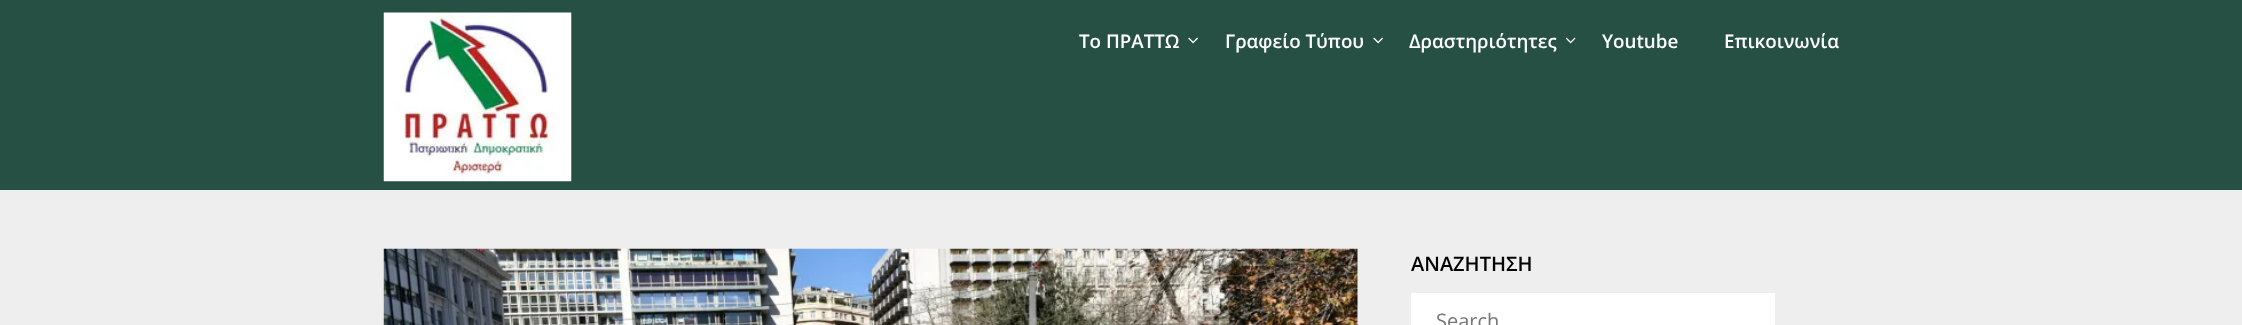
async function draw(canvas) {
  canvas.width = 2242
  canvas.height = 325
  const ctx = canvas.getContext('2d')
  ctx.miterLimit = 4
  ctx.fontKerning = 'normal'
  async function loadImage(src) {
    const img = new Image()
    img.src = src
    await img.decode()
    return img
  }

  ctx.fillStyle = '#eee'
  ctx.fillRect(0, 0, 2242, 325)
  ctx.fillStyle = '#275044'
  ctx.fillRect(0, 0, 2242, 190)
  ctx.drawImage(await loadImage('image0.png'), 383, 12, 189, 170)
  ctx.font = '600 18.75px Open Sans'
  ctx.fillStyle = '#fff'
  ctx.fillText('Το ΠΡΑΤΤΩ', 1079, 48)
  ctx.drawImage(await loadImage('image1.png'), 1188, 37, 10, 7)
  ctx.fillText('Γραφείο Τύπου', 1225, 48)
  ctx.drawImage(await loadImage('image1.png'), 1373, 37, 10, 7)
  ctx.fillText('Δραστηριότητες', 1409, 48)
  ctx.drawImage(await loadImage('image2.png'), 1565, 37, 11, 7)
  ctx.fillText('Youtube', 1602, 48)
  ctx.fillText('Επικοινωνία', 1724, 48)
  ctx.drawImage(await loadImage('image3.png'), 383, 248, 975, 77)
  ctx.font = '600 20px Open Sans'
  ctx.fillStyle = '#000'
  ctx.fillText('ΑΝΑΖΗΤΗΣΗ', 1411, 271)
  ctx.fillStyle = '#fff'
  ctx.fillRect(1411, 293, 364, 32)
  ctx.font = '20px Open Sans'
  ctx.fillStyle = '#757575'
  ctx.fillText('Search', 1436, 328)
}

draw(document.querySelector('canvas'))
